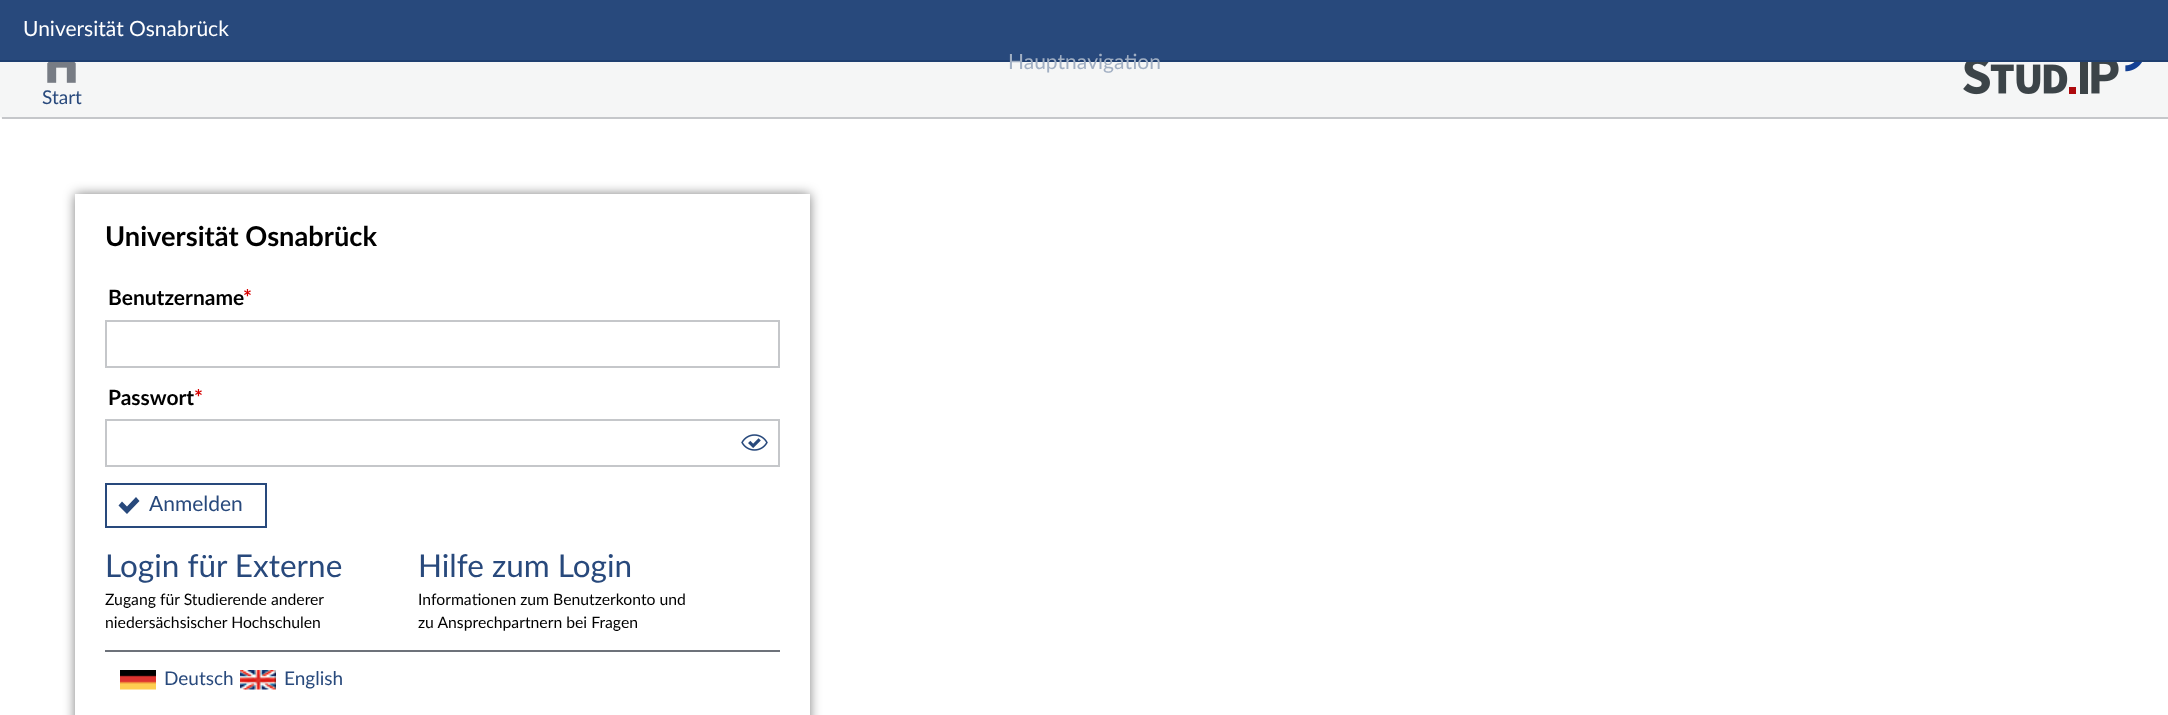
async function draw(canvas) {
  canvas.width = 2168
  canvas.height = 715
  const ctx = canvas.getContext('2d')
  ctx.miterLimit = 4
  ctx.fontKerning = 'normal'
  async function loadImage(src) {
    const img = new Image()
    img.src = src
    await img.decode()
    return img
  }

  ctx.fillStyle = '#fff'
  ctx.fillRect(0, 0, 2168, 715)
  ctx.fillStyle = '#f5f6f6'
  ctx.beginPath()
  ctx.moveTo(0, 14)
  ctx.lineTo(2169, 14)
  ctx.lineTo(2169, 116)
  ctx.bezierCurveTo(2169, 117.5, 2167.5, 119, 2166, 119)
  ctx.lineTo(3, 119)
  ctx.bezierCurveTo(1.5, 119, 0, 117.5, 0, 116)
  ctx.closePath()
  ctx.fill()
  ctx.fillStyle = '#28497c'
  ctx.fillRect(0, 0, 2168, 60)
  ctx.fillStyle = '#1f3f70'
  ctx.fillRect(0, 60, 2168, 2)
  ctx.font = '21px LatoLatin'
  ctx.fillStyle = '#fff'
  ctx.fillText('Universität Osnabrück', 23, 36)
  ctx.fillStyle = '#c5c7ca'
  ctx.fillRect(2, 117, 2166, 2)
  ctx.drawImage(await loadImage('image0.png'), 1963, 62, 179, 33)
  ctx.drawImage(await loadImage('image1.png'), 47, 62, 29, 21)
  ctx.font = '19px LatoLatin'
  ctx.fillStyle = '#28497c'
  ctx.fillText('Start', 42, 104)
  ctx.font = '21px LatoLatin'
  ctx.fillStyle = '#a1afc3'
  ctx.fillText('Hauptnavigation', 1008, 69)
  ctx.save()
  ctx.beginPath()
  ctx.moveTo(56, 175)
  ctx.lineTo(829, 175)
  ctx.lineTo(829, 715)
  ctx.lineTo(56, 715)
  ctx.closePath()
  ctx.moveTo(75, 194)
  ctx.lineTo(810, 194)
  ctx.lineTo(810, 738)
  ctx.lineTo(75, 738)
  ctx.closePath()
  ctx.clip('evenodd')
  ctx.fillStyle = '#00000080'
  ctx.filter = 'blur(6px)'
  ctx.beginPath()
  ctx.rect(75, 194, 735, 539)
  ctx.fill()
  ctx.filter = 'none'
  ctx.restore()
  ctx.font = 'bold 27.25px LatoLatin'
  ctx.fillStyle = '#000'
  ctx.fillText('Universität Osnabrück', 105, 246)
  ctx.font = 'bold 21px LatoLatin'
  ctx.fillText('Benutzername', 108, 305)
  ctx.fillStyle = '#d60000'
  ctx.fillText('*', 243, 305)
  ctx.strokeStyle = '#c5c7ca'
  ctx.lineWidth = 2
  ctx.strokeRect(106, 321, 673, 46)
  ctx.fillStyle = '#000'
  ctx.fillText('Passwort', 108, 405)
  ctx.fillStyle = '#d60000'
  ctx.fillText('*', 194, 405)
  ctx.strokeRect(106, 420, 673, 46)
  ctx.drawImage(await loadImage('image2.png'), 741, 434, 27, 17)
  ctx.strokeStyle = '#28497c'
  ctx.strokeRect(106, 484, 160, 43)
  ctx.fillStyle = '#28497c'
  ctx.beginPath()
  ctx.moveTo(139.5, 501)
  ctx.lineTo(136, 497)
  ctx.lineTo(127, 506.5)
  ctx.lineTo(122, 501.5)
  ctx.lineTo(118.5, 505.5)
  ctx.lineTo(127, 514)
  ctx.closePath()
  ctx.fill()
  ctx.font = '21px LatoLatin'
  ctx.fillText('Anmelden', 149, 511)
  ctx.font = '31.5px LatoLatin'
  ctx.fillText('Login für Externe', 105, 577)
  ctx.font = '15.75px LatoLatin'
  ctx.fillStyle = '#000'
  ctx.fillText('Zugang für Studierende anderer', 105, 605)
  ctx.fillText('niedersächsischer Hochschulen', 105, 628)
  ctx.font = '31.5px LatoLatin'
  ctx.fillStyle = '#28497c'
  ctx.fillText('Hilfe zum Login', 418, 577)
  ctx.font = '15.75px LatoLatin'
  ctx.fillStyle = '#000'
  ctx.fillText('Informationen zum Benutzerkonto und', 418, 605)
  ctx.fillText('zu Ansprechpartnern bei Fragen', 418, 628)
  ctx.fillStyle = '#6d727a'
  ctx.fillRect(105, 650, 675, 2)
  ctx.drawImage(await loadImage('image3.png'), 120, 670, 36, 20)
  ctx.font = '19px LatoLatin'
  ctx.fillStyle = '#28497c'
  ctx.fillText('Deutsch', 164, 685)
  ctx.drawImage(await loadImage('image4.png'), 240, 670, 36, 20)
  ctx.fillText('English', 284, 685)
}

draw(document.querySelector('canvas'))
